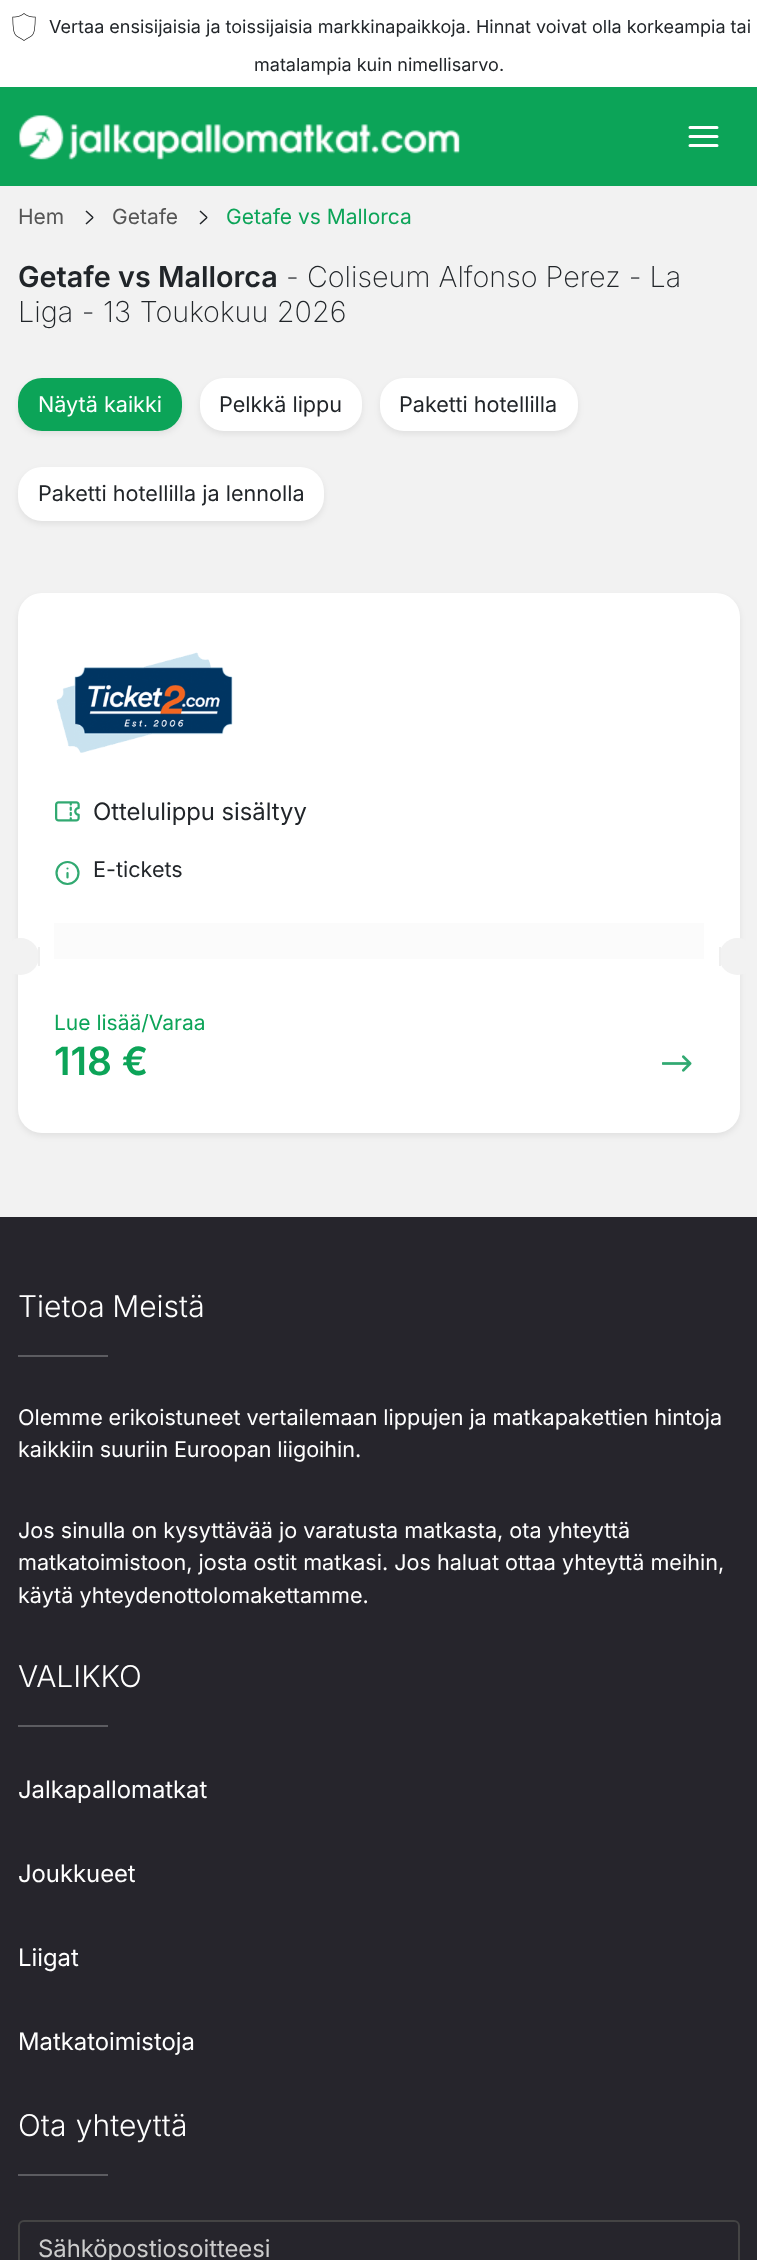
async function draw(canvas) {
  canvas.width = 757
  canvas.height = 2260
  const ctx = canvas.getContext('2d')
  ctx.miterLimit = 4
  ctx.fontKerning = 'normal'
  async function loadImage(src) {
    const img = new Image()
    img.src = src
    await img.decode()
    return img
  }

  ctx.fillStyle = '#f2f2f2'
  ctx.fillRect(0, 0, 757, 2260)
  ctx.fillStyle = '#fff'
  ctx.fillRect(0, 0, 757, 87)
  ctx.drawImage(await loadImage('image0.png'), 12, 13, 24, 28)
  ctx.font = '18px Inter'
  ctx.fillStyle = '#212529'
  ctx.fillText('Vertaa ensisijaisia ja toissijaisia markkinapaikkoja. Hinnat voivat olla korkeampia tai', 49, 33)
  ctx.fillText('matalampia kuin nimellisarvo.', 254, 71)
  ctx.fillStyle = '#0ca458'
  ctx.fillRect(0, 87, 757, 99)
  ctx.drawImage(await loadImage('image1.png'), 19, 115, 441, 45)
  ctx.beginPath()
  ctx.moveTo(690, 136.5)
  ctx.lineTo(717, 136.5)
  ctx.moveTo(690, 127.5)
  ctx.lineTo(717, 127.5)
  ctx.moveTo(690, 145.5)
  ctx.lineTo(717, 145.5)
  ctx.strokeStyle = '#fff'
  ctx.lineWidth = 3
  ctx.lineCap = 'round'
  ctx.lineJoin = 'round'
  ctx.stroke()
  ctx.font = '21px Inter'
  ctx.fillStyle = '#555'
  ctx.fillText('Hem', 18, 224)
  ctx.beginPath()
  ctx.moveTo(86, 211)
  ctx.lineTo(92.5, 217)
  ctx.bezierCurveTo(93, 217.5, 93, 217.5, 92.5, 218)
  ctx.lineTo(86, 224)
  ctx.strokeStyle = '#212529'
  ctx.lineWidth = 1.5
  ctx.lineCap = 'butt'
  ctx.lineJoin = 'miter'
  ctx.stroke()
  ctx.fillText('Getafe', 112, 224)
  ctx.beginPath()
  ctx.moveTo(200, 211)
  ctx.lineTo(206.5, 217)
  ctx.bezierCurveTo(207, 217.5, 207, 217.5, 206.5, 218)
  ctx.lineTo(200, 224)
  ctx.stroke()
  ctx.fillStyle = '#0ca458'
  ctx.fillText('Getafe vs Mallorca', 226, 224)
  ctx.font = '600 28.75px Inter'
  ctx.fillStyle = '#212529'
  ctx.fillText('Getafe vs Mallorca', 18, 287)
  ctx.font = '200 28.75px Inter'
  ctx.fillText('- Coliseum Alfonso Perez - La', 286, 287)
  ctx.wordSpacing = '0.5px'
  ctx.fillText('Liga - 13 Toukokuu 2026', 18, 322)
  ctx.fillStyle = '#00000012'
  ctx.filter = 'blur(3px)'
  ctx.beginPath()
  ctx.roundRect(18, 381, 164, 53, 24)
  ctx.fill()
  ctx.filter = 'none'
  ctx.fillStyle = '#0ca458'
  ctx.beginPath()
  ctx.roundRect(18, 378, 164, 53, 24)
  ctx.fill()
  ctx.wordSpacing = '0px'
  ctx.font = '21.6px Inter'
  ctx.fillStyle = '#fff'
  ctx.fillText('Näytä kaikki', 38, 412)
  ctx.fillStyle = '#00000012'
  ctx.filter = 'blur(3px)'
  ctx.beginPath()
  ctx.roundRect(200, 381, 162, 53, 24)
  ctx.fill()
  ctx.filter = 'none'
  ctx.fillStyle = '#fff'
  ctx.beginPath()
  ctx.roundRect(200, 378, 162, 53, 24)
  ctx.fill()
  ctx.fillStyle = '#212529'
  ctx.fillText('Pelkkä lippu', 219, 412)
  ctx.fillStyle = '#00000012'
  ctx.filter = 'blur(3px)'
  ctx.beginPath()
  ctx.roundRect(380, 381, 198, 53, 24)
  ctx.fill()
  ctx.filter = 'none'
  ctx.fillStyle = '#fff'
  ctx.beginPath()
  ctx.roundRect(380, 378, 198, 53, 24)
  ctx.fill()
  ctx.fillStyle = '#212529'
  ctx.fillText('Paketti hotellilla', 399, 412)
  ctx.fillStyle = '#00000012'
  ctx.filter = 'blur(3px)'
  ctx.beginPath()
  ctx.roundRect(18, 470, 306, 54, 24)
  ctx.fill()
  ctx.filter = 'none'
  ctx.fillStyle = '#fff'
  ctx.beginPath()
  ctx.roundRect(18, 467, 306, 54, 24)
  ctx.fill()
  ctx.fillStyle = '#212529'
  ctx.fillText('Paketti hotellilla ja lennolla', 38, 501)
  ctx.fillStyle = '#00000012'
  ctx.filter = 'blur(3px)'
  ctx.beginPath()
  ctx.roundRect(18, 596, 722, 540, 24)
  ctx.fill()
  ctx.filter = 'none'
  ctx.fillStyle = '#fff'
  ctx.beginPath()
  ctx.roundRect(18, 593, 722, 540, 24)
  ctx.fill()
  ctx.drawImage(await loadImage('image2.png'), 56, 652, 177, 101)
  ctx.drawImage(await loadImage('image3.png'), 55, 801, 25, 21)
  ctx.font = '24px "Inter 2"'
  ctx.fillStyle = '#212529'
  ctx.fillText('Ottelulippu sisältyy', 93, 820)
  ctx.beginPath()
  ctx.arc(67.5, 873, 11, 0, 2 * Math.PI)
  ctx.strokeStyle = '#31a971'
  ctx.lineWidth = 2.2
  ctx.stroke()
  ctx.beginPath()
  ctx.moveTo(67.5, 873)
  ctx.lineTo(67.5, 877.5)
  ctx.moveTo(67.5, 868.5)
  ctx.lineTo(67.5, 868.5)
  ctx.lineCap = 'round'
  ctx.lineJoin = 'round'
  ctx.stroke()
  ctx.font = '21.6px Inter'
  ctx.fillText('E-tickets', 93, 877)
  ctx.fillStyle = '#fbfbfb'
  ctx.fillRect(54, 923, 650, 36)
  ctx.fillStyle = '#f2f2f2'
  ctx.beginPath()
  ctx.arc(20.5, 956.5, 18.5, 0, 2 * Math.PI)
  ctx.fill()
  ctx.fillStyle = '#efefef'
  ctx.fillRect(38, 947, 2, 19)
  ctx.fillStyle = '#f2f2f2'
  ctx.beginPath()
  ctx.arc(737.5, 956.5, 18.5, 0, 2 * Math.PI)
  ctx.fill()
  ctx.fillStyle = '#efefef'
  ctx.fillRect(719, 947, 2, 19)
  ctx.font = '21px Inter'
  ctx.fillStyle = '#0ca458'
  ctx.fillText('Lue lisää/Varaa', 54, 1030)
  ctx.font = '600 39px Inter'
  ctx.fillText('118 €', 54, 1075)
  ctx.drawImage(await loadImage('image4.png'), 662, 1055, 30, 17)
  ctx.fillStyle = '#26252c'
  ctx.fillRect(0, 1217, 757, 1043)
  ctx.wordSpacing = '-1px'
  ctx.font = '300 30px Inter'
  ctx.fillStyle = '#fff'
  ctx.fillText('Tietoa Meistä', 18, 1317)
  ctx.fillStyle = '#5c5c61'
  ctx.fillRect(18, 1355, 90, 2)
  ctx.wordSpacing = '-0.25px'
  ctx.font = '21.6px Inter'
  ctx.fillStyle = '#fff'
  ctx.fillText('Olemme erikoistuneet vertailemaan lippujen ja matkapakettien hintoja', 18, 1425)
  ctx.wordSpacing = '-0.5px'
  ctx.fillText('kaikkiin suuriin Euroopan liigoihin.', 18, 1457)
  ctx.wordSpacing = '0px'
  ctx.fillText('Jos sinulla on kysyttävää jo varatusta matkasta, ota yhteyttä', 18, 1538)
  ctx.fillText('matkatoimistoon, josta ostit matkasi. Jos haluat ottaa yhteyttä meihin,', 18, 1570)
  ctx.fillText('käytä yhteydenottolomakettamme.', 18, 1603)
  ctx.font = '300 30px Inter'
  ctx.fillText('VALIKKO', 18, 1687)
  ctx.fillStyle = '#5c5c61'
  ctx.fillRect(18, 1725, 90, 2)
  ctx.font = '24px "Inter 2"'
  ctx.fillStyle = '#fff'
  ctx.fillText('Jalkapallomatkat', 18, 1798)
  ctx.fillText('Joukkueet', 18, 1882)
  ctx.fillText('Liigat', 18, 1966)
  ctx.fillText('Matkatoimistoja', 18, 2050)
  ctx.wordSpacing = '1px'
  ctx.font = '300 30px Inter'
  ctx.fillText('Ota yhteyttä', 18, 2136)
  ctx.fillStyle = '#5c5c61'
  ctx.fillRect(18, 2174, 90, 2)
  ctx.beginPath()
  ctx.roundRect(19, 2221, 720, 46, 5)
  ctx.strokeStyle = '#444'
  ctx.lineWidth = 2
  ctx.lineJoin = 'miter'
  ctx.stroke()
  ctx.wordSpacing = '0px'
  ctx.font = '24px "Inter 2"'
  ctx.fillStyle = '#ccc'
  ctx.fillText('Sähköpostiosoitteesi', 38, 2257)
}

draw(document.querySelector('canvas'))
